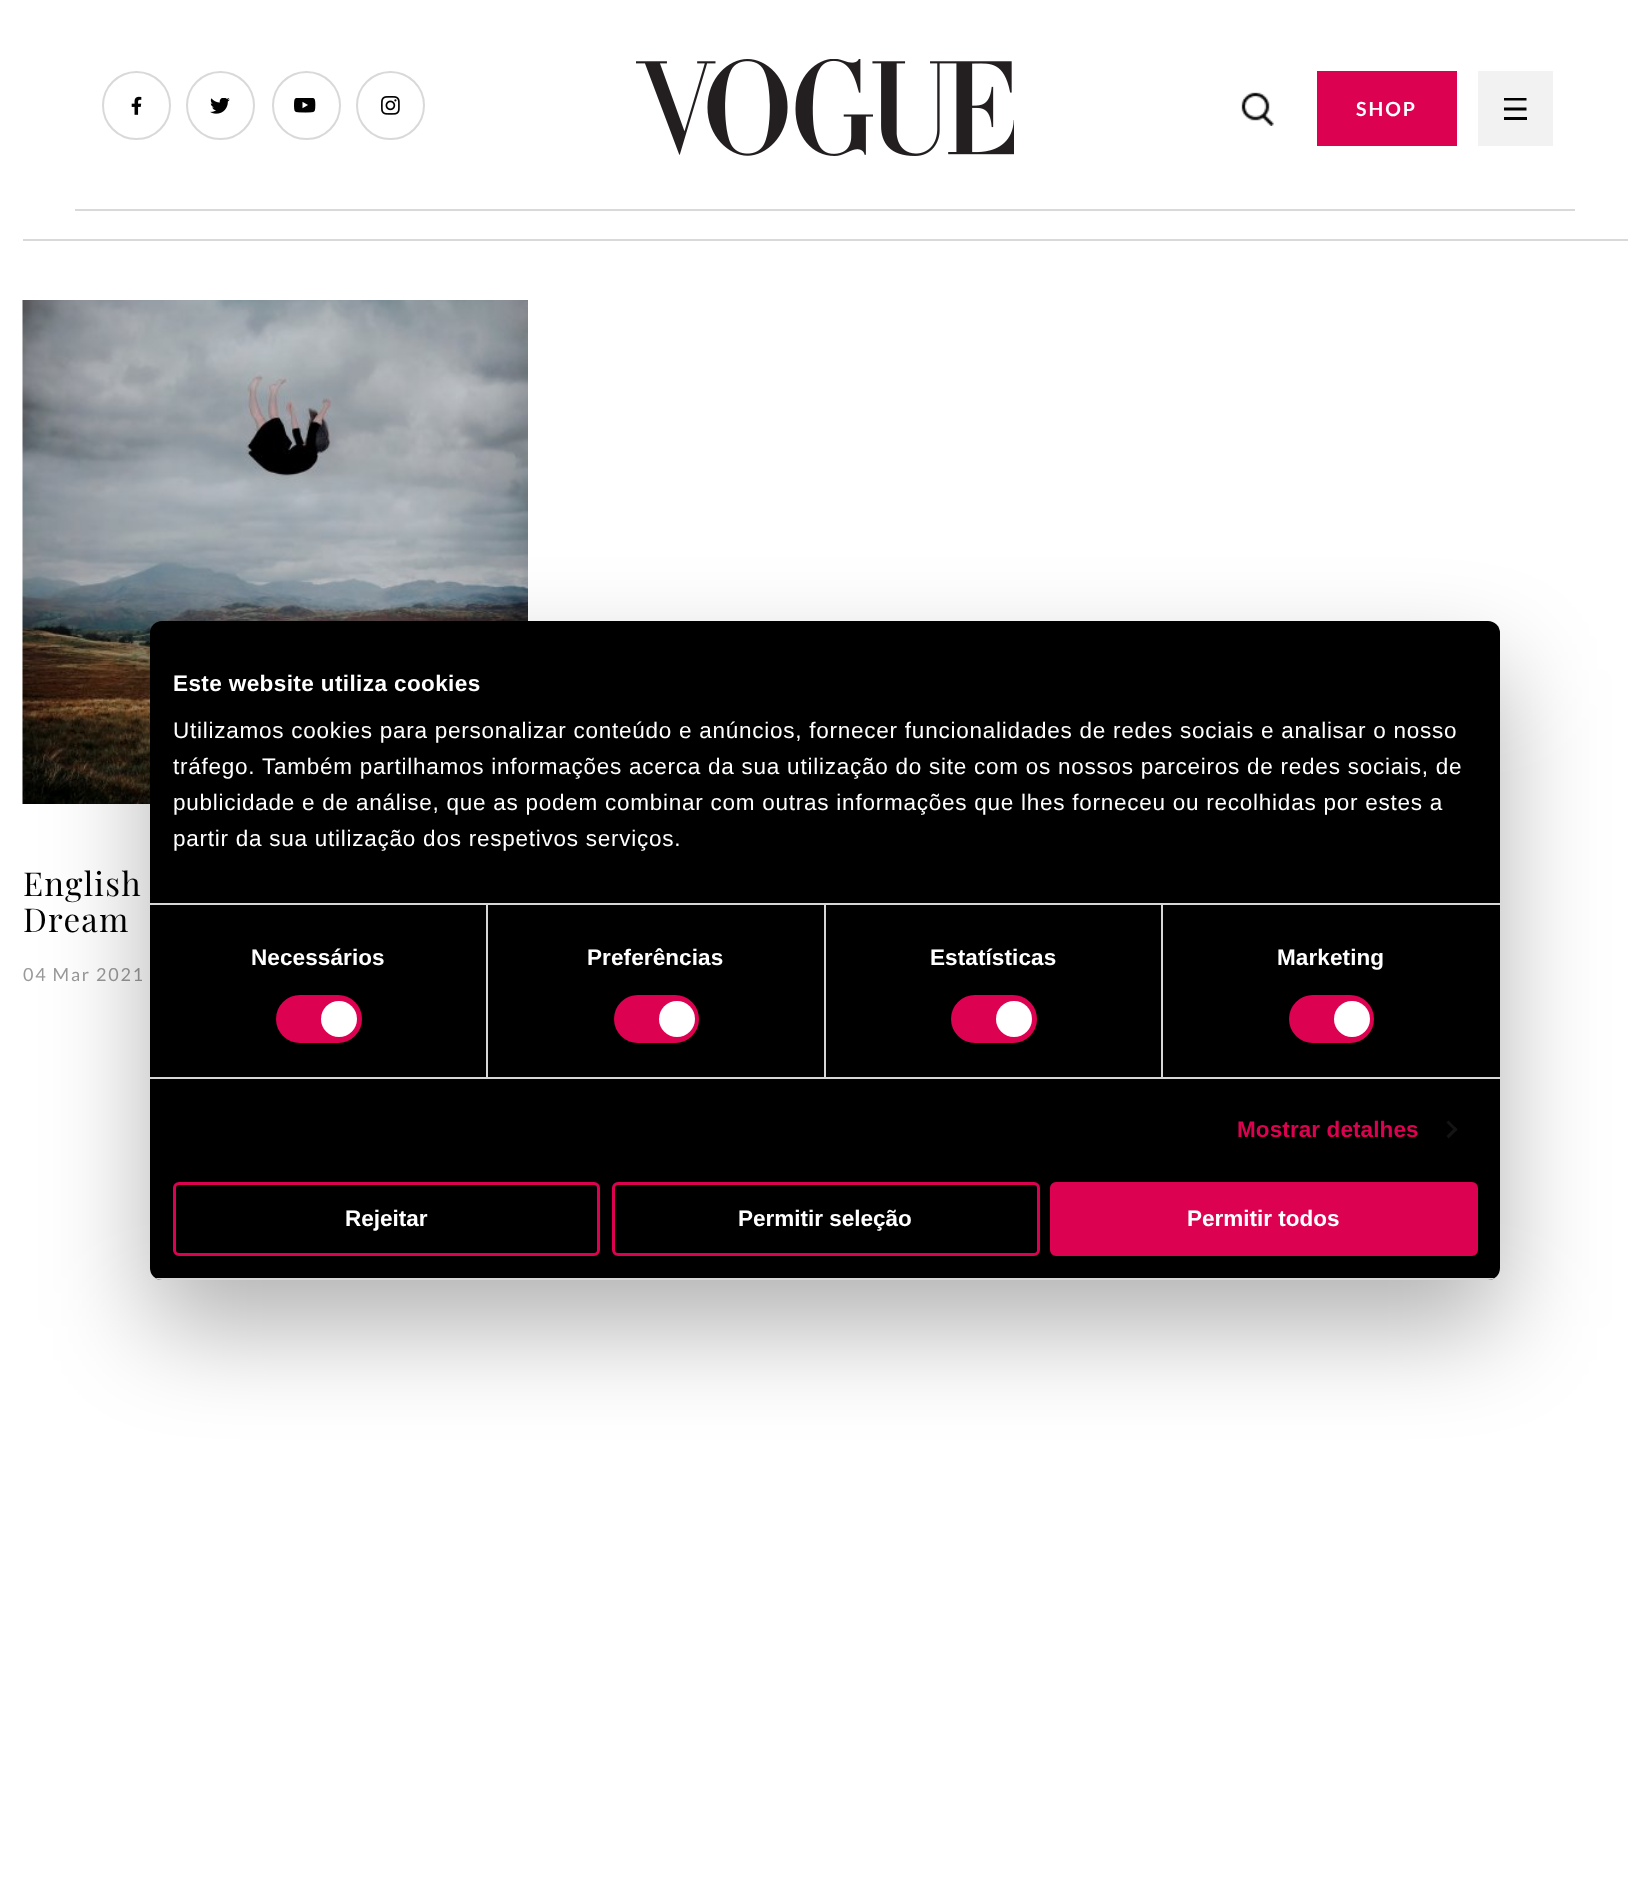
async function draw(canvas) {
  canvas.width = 1650
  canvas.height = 1899
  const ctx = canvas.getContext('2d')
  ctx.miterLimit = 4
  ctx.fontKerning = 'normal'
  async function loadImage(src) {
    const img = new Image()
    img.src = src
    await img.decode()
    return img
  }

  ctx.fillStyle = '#fff'
  ctx.fillRect(0, 0, 1650, 1899)
  ctx.fillStyle = '#d9d9d9'
  ctx.fillRect(75, 209, 1500, 2)
  ctx.drawImage(await loadImage('image0.png'), 131, 96, 11, 19)
  ctx.beginPath()
  ctx.arc(136.5, 105.5, 33.5, 0, 2 * Math.PI)
  ctx.strokeStyle = '#d9d9d9'
  ctx.lineWidth = 2
  ctx.stroke()
  ctx.drawImage(await loadImage('image1.png'), 210, 98, 20, 16)
  ctx.beginPath()
  ctx.arc(220.5, 105.5, 33.5, 0, 2 * Math.PI)
  ctx.stroke()
  ctx.drawImage(await loadImage('image2.png'), 294, 98, 22, 15)
  ctx.beginPath()
  ctx.arc(306.5, 105.5, 33.5, 0, 2 * Math.PI)
  ctx.stroke()
  ctx.drawImage(await loadImage('image3.png'), 381, 96, 19, 19)
  ctx.beginPath()
  ctx.arc(390.5, 105.5, 33.5, 0, 2 * Math.PI)
  ctx.stroke()
  ctx.drawImage(await loadImage('image4.png'), 636, 59, 378, 97)
  ctx.drawImage(await loadImage('image5.png'), 1241, 92, 33, 34)
  ctx.fillStyle = '#dd0251'
  ctx.fillRect(1317, 71, 140, 75)
  ctx.letterSpacing = '2px'
  ctx.font = 'bold 19.5px Lato'
  ctx.fillStyle = '#fff'
  ctx.fillText('SHOP', 1356, 116)
  ctx.fillStyle = '#f2f2f2'
  ctx.fillRect(1478, 71, 75, 75)
  ctx.save()
  ctx.beginPath()
  ctx.rect(1503, 98, 24, 22)
  ctx.clip()
  ctx.beginPath()
  ctx.moveTo(1504, 99)
  ctx.lineTo(1526.5, 99)
  ctx.strokeStyle = '#020202'
  ctx.lineWidth = 3
  ctx.stroke()
  ctx.restore()
  ctx.beginPath()
  ctx.moveTo(1504, 109)
  ctx.lineTo(1526.5, 109)
  ctx.strokeStyle = '#020202'
  ctx.lineWidth = 3
  ctx.stroke()
  ctx.fillStyle = '#020202'
  ctx.fillRect(1504, 117, 23, 3)
  ctx.fillStyle = '#d9d9d9'
  ctx.fillRect(23, 239, 1605, 2)
  ctx.drawImage(await loadImage('image6.png'), 22, 300, 506, 504)
  ctx.letterSpacing = '1.25px'
  ctx.font = '33px Playfair Display'
  ctx.fillStyle = '#020202'
  ctx.fillText('English', 23, 896)
  ctx.fillText('Dream', 23, 932)
  ctx.letterSpacing = '1.75px'
  ctx.font = '18px Lato'
  ctx.fillStyle = '#9a9a9a'
  ctx.fillText('04 Mar 2021', 23, 981)
  ctx.fillStyle = '#0000004d'
  ctx.filter = 'blur(51px)'
  ctx.beginPath()
  ctx.roundRect(150, 669, 1350, 659, 12)
  ctx.fill()
  ctx.filter = 'none'
  ctx.fillStyle = '#000'
  ctx.beginPath()
  ctx.roundRect(150, 621, 1350, 659, 12)
  ctx.fill()
  ctx.fillStyle = '#d6d6d6'
  ctx.fillRect(150, 903, 1350, 2)
  ctx.letterSpacing = '0.4px'
  ctx.font = 'bold 22.5px Liberation Sans'
  ctx.fillStyle = '#fff'
  ctx.fillText('Este website utiliza cookies', 173, 691)
  ctx.letterSpacing = '0.75px'
  ctx.font = '22.5px Liberation Sans'
  ctx.fillText('Utilizamos cookies para personalizar conteúdo e anúncios, fornecer funcionalidades de redes sociais e analisar o nosso', 173, 738)
  ctx.fillText('tráfego. Também partilhamos informações acerca da sua utilização do site com os nossos parceiros de redes sociais, de', 173, 774)
  ctx.fillText('publicidade e de análise, que as podem combinar com outras informações que lhes forneceu ou recolhidas por estes a', 173, 810)
  ctx.fillText('partir da sua utilização dos respetivos serviços.', 173, 846)
  ctx.fillStyle = '#d6d6d6'
  ctx.fillRect(150, 1077, 1350, 2)
  ctx.fillRect(486, 905, 2, 172)
  ctx.letterSpacing = '0.1px'
  ctx.font = 'bold 22.5px Liberation Sans'
  ctx.fillStyle = '#fff'
  ctx.fillText('Necessários', 251, 965)
  ctx.fillStyle = '#dd0251'
  ctx.beginPath()
  ctx.roundRect(276, 995, 86, 48, 24)
  ctx.fill()
  ctx.fillStyle = '#fff'
  ctx.beginPath()
  ctx.arc(339, 1019, 18, 0, 2 * Math.PI)
  ctx.fill()
  ctx.fillStyle = '#d6d6d6'
  ctx.fillRect(824, 905, 2, 172)
  ctx.fillStyle = '#fff'
  ctx.fillText('Preferências', 587, 965)
  ctx.fillStyle = '#dd0251'
  ctx.beginPath()
  ctx.roundRect(614, 995, 85, 48, 24)
  ctx.fill()
  ctx.fillStyle = '#fff'
  ctx.beginPath()
  ctx.arc(677, 1019, 18, 0, 2 * Math.PI)
  ctx.fill()
  ctx.fillStyle = '#d6d6d6'
  ctx.fillRect(1161, 905, 2, 172)
  ctx.fillStyle = '#fff'
  ctx.fillText('Estatísticas', 930, 965)
  ctx.fillStyle = '#dd0251'
  ctx.beginPath()
  ctx.roundRect(951, 995, 86, 48, 24)
  ctx.fill()
  ctx.fillStyle = '#fff'
  ctx.beginPath()
  ctx.arc(1014, 1019, 18, 0, 2 * Math.PI)
  ctx.fill()
  ctx.fillText('Marketing', 1277, 965)
  ctx.fillStyle = '#dd0251'
  ctx.beginPath()
  ctx.roundRect(1289, 995, 85, 48, 24)
  ctx.fill()
  ctx.fillStyle = '#fff'
  ctx.beginPath()
  ctx.arc(1352, 1019, 18, 0, 2 * Math.PI)
  ctx.fill()
  ctx.fillStyle = '#dd0251'
  ctx.fillText('Mostrar detalhes', 1237, 1137)
  ctx.fillStyle = '#141414'
  ctx.beginPath()
  ctx.moveTo(1448.5, 1120.5)
  ctx.lineTo(1457.5, 1129.5)
  ctx.lineTo(1455.5, 1131.5)
  ctx.lineTo(1446.5, 1122.5)
  ctx.closePath()
  ctx.fill()
  ctx.beginPath()
  ctx.moveTo(1455.5, 1127)
  ctx.lineTo(1457.5, 1129.5)
  ctx.lineTo(1448.5, 1138.5)
  ctx.lineTo(1446.5, 1136)
  ctx.closePath()
  ctx.fill()
  ctx.save()
  ctx.beginPath()
  ctx.roundRect(150, 621, 1350, 659, 12)
  ctx.clip()
  ctx.fillStyle = '#d6d6d6'
  ctx.fillRect(150, 1278, 1350, 2)
  ctx.restore()
  ctx.beginPath()
  ctx.roundRect(174.5, 1183.5, 424, 71, 4.5)
  ctx.strokeStyle = '#dd0251'
  ctx.stroke()
  ctx.letterSpacing = '0px'
  ctx.fillStyle = '#fff'
  ctx.fillText('Rejeitar', 345, 1226)
  ctx.beginPath()
  ctx.roundRect(613.5, 1183.5, 425, 71, 4.5)
  ctx.stroke()
  ctx.fillText('Permitir seleção', 738, 1226)
  ctx.fillStyle = '#dd0251'
  ctx.beginPath()
  ctx.roundRect(1051.5, 1183.5, 425, 71, 4.5)
  ctx.fill()
  ctx.stroke()
  ctx.fillStyle = '#fff'
  ctx.fillText('Permitir todos', 1187, 1226)
}

draw(document.querySelector('canvas'))
